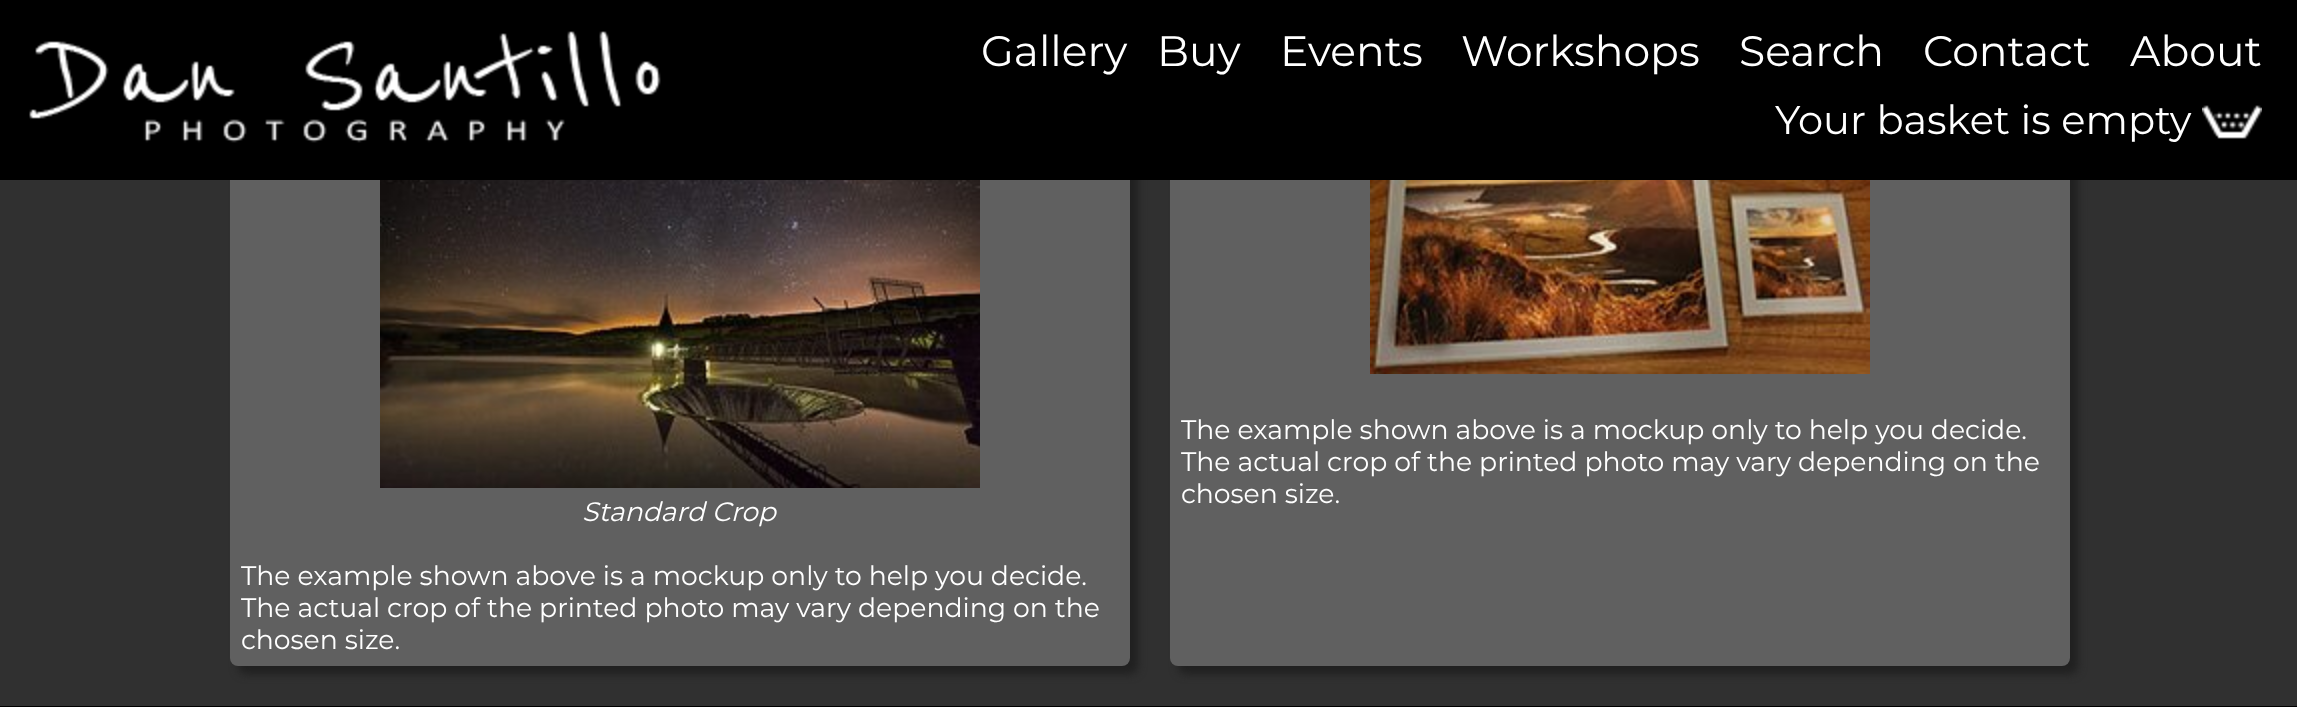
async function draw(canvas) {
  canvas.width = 2297
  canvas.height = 707
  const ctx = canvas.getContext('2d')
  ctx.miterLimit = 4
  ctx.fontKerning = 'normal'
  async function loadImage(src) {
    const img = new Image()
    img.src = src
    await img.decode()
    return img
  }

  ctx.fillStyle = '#303030'
  ctx.fillRect(0, 0, 2297, 707)
  ctx.fillStyle = '#202020'
  ctx.filter = 'blur(4px)'
  ctx.beginPath()
  ctx.roundRect(1178, -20, 900, 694, 8)
  ctx.fill()
  ctx.filter = 'none'
  ctx.fillStyle = '#606060'
  ctx.beginPath()
  ctx.roundRect(1170, -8, 900, 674, 8)
  ctx.fill()
  ctx.fillStyle = '#202020'
  ctx.filter = 'blur(4px)'
  ctx.beginPath()
  ctx.roundRect(238, -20, 900, 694, 8)
  ctx.fill()
  ctx.filter = 'none'
  ctx.fillStyle = '#606060'
  ctx.beginPath()
  ctx.roundRect(230, -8, 900, 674, 8)
  ctx.fill()
  ctx.fillStyle = '#000'
  ctx.fillRect(0, 0, 2297, 180)
  ctx.drawImage(await loadImage('image0.png'), 29, 31, 632, 112)
  ctx.font = '100 42.5px Montserrat'
  ctx.fillStyle = '#fff'
  ctx.fillText('Gallery', 981, 66)
  ctx.fillText('Buy', 1157, 66)
  ctx.fillText('Events', 1280, 66)
  ctx.fillText('Workshops', 1461, 66)
  ctx.fillText('Search', 1739, 66)
  ctx.fillText('Contact', 1923, 66)
  ctx.fillText('About', 2130, 66)
  ctx.font = '100 40px Montserrat'
  ctx.fillText('Your basket is empty', 1775, 134)
  ctx.drawImage(await loadImage('image1.png'), 2202, 105, 60, 34)
  ctx.drawImage(await loadImage('image2.png'), 1370, 180, 500, 194)
  ctx.font = '100 26.7px Montserrat'
  ctx.fillText('The example shown above is a mockup only to help you decide.', 1181, 439)
  ctx.fillText('The actual crop of the printed photo may vary depending on the', 1181, 471)
  ctx.fillText('chosen size.', 1181, 503)
  ctx.drawImage(await loadImage('image3.png'), 380, 180, 600, 308)
  ctx.font = 'italic 100 26.7px Montserrat'
  ctx.fillText('Standard Crop', 582, 521)
  ctx.font = '100 26.7px Montserrat'
  ctx.fillText('The example shown above is a mockup only to help you decide.', 241, 585)
  ctx.fillText('The actual crop of the printed photo may vary depending on the', 241, 617)
  ctx.fillText('chosen size.', 241, 649)
  ctx.fillStyle = '#000'
  ctx.fillRect(0, 706, 2297, 1)
}

draw(document.querySelector('canvas'))
